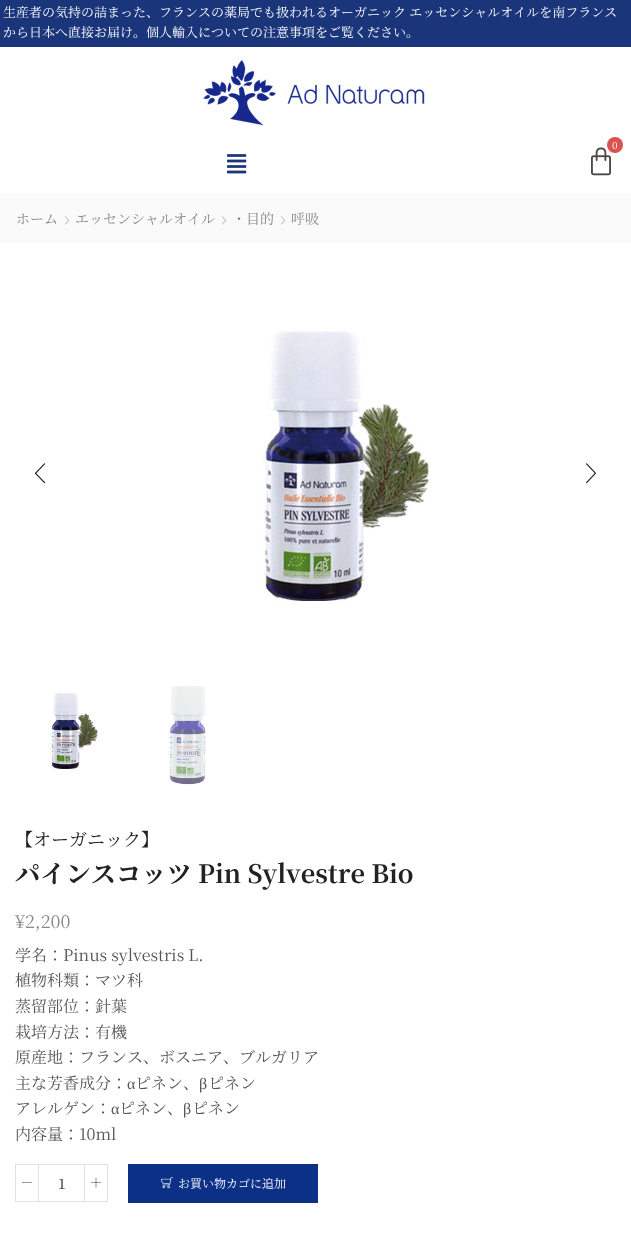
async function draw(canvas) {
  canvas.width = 631
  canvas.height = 1249
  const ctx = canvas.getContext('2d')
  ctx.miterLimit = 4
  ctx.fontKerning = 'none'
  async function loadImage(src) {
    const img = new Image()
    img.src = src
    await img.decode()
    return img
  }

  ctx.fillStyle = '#fff'
  ctx.fillRect(0, 0, 631, 1249)
  ctx.fillStyle = '#1a357a'
  ctx.fillRect(0, 0, 631, 47)
  ctx.font = '13px Noto Serif JP'
  ctx.fillStyle = '#fff'
  ctx.fillText('生産者の気持の詰まった、フランスの薬局でも扱われるオーガニック エッセンシャルオイルを南フランス', 3, 17)
  ctx.fillText('から日本へ直接お届け。個人輸入についての注意事項をご覧ください。', 3, 37)
  ctx.drawImage(await loadImage('image0.png'), 203, 60, 222, 66)
  ctx.drawImage(await loadImage('image1.png'), 591, 147, 20, 29)
  ctx.fillStyle = '#d9534f'
  ctx.beginPath()
  ctx.arc(615, 145, 8, 0, 2 * Math.PI)
  ctx.fill()
  ctx.font = '10px Noto Serif JP'
  ctx.fillStyle = '#fff'
  ctx.fillText('0', 612, 149)
  ctx.drawImage(await loadImage('image2.png'), 227, 154, 20, 20)
  ctx.fillStyle = '#fafafa'
  ctx.fillRect(0, 193, 631, 50)
  ctx.font = '14px Noto Serif JP'
  ctx.fillStyle = '#888'
  ctx.fillText('ホーム', 16, 224)
  ctx.drawImage(await loadImage('image3.png'), 65, 216, 4, 9)
  ctx.fillText('エッセンシャルオイル', 75, 224)
  ctx.drawImage(await loadImage('image3.png'), 222, 216, 4, 9)
  ctx.fillText('・目的', 232, 224)
  ctx.drawImage(await loadImage('image3.png'), 281, 216, 4, 9)
  ctx.fillText('呼吸', 291, 224)
  ctx.drawImage(await loadImage('image4.png'), 34, 463, 12, 21)
  ctx.drawImage(await loadImage('image5.png'), 260, 331, 169, 272)
  ctx.drawImage(await loadImage('image6.png'), 586, 463, 10, 21)
  ctx.drawImage(await loadImage('image7.png'), 51, 693, 47, 76)
  ctx.drawImage(await loadImage('image8.png'), 169, 686, 37, 99)
  ctx.font = '18px Noto Serif JP'
  ctx.fillStyle = '#222'
  ctx.fillText('【オーガニック】', 15, 846)
  ctx.font = 'bold 25.25px Noto Serif JP'
  ctx.fillText('パインスコッツ Pin Sylvestre Bio', 15, 883)
  ctx.font = '18px Noto Serif JP'
  ctx.fillStyle = '#888'
  ctx.fillText('¥2,200', 15, 928)
  ctx.font = '16px Noto Serif JP'
  ctx.fillStyle = '#555'
  ctx.fillText('学名：Pinus sylvestris L.', 15, 961)
  ctx.fillText('植物科類：マツ科', 15, 986)
  ctx.fillText('蒸留部位：針葉', 15, 1012)
  ctx.fillText('栽培方法：有機', 15, 1038)
  ctx.fillText('原産地：フランス、ボスニア、ブルガリア', 15, 1063)
  ctx.fillText('主な芳香成分：', 15, 1089)
  ctx.font = '16px Liberation Serif'
  ctx.fillText('α', 127, 1089)
  ctx.font = '16px Noto Serif JP'
  ctx.fillText('ピネン、', 135, 1089)
  ctx.font = '16px Liberation Serif'
  ctx.fillText('β', 199, 1089)
  ctx.font = '16px Noto Serif JP'
  ctx.fillText('ピネン', 208, 1089)
  ctx.fillText('アレルゲン：', 15, 1114)
  ctx.font = '16px Liberation Serif'
  ctx.fillText('α', 111, 1114)
  ctx.font = '16px Noto Serif JP'
  ctx.fillText('ピネン、', 119, 1114)
  ctx.font = '16px Liberation Serif'
  ctx.fillText('β', 183, 1114)
  ctx.font = '16px Noto Serif JP'
  ctx.fillText('ピネン', 192, 1114)
  ctx.fillText('内容量：10ml', 15, 1140)
  ctx.strokeStyle = '#e1e1e1'
  ctx.strokeRect(15.5, 1164.5, 23, 37)
  ctx.drawImage(await loadImage('image9.png'), 22, 1182, 10, 1)
  ctx.fillStyle = '#e1e1e1'
  ctx.fillRect(39, 1164, 45, 1)
  ctx.fillRect(39, 1201, 45, 1)
  ctx.font = '14px Noto Serif JP'
  ctx.fillStyle = '#222'
  ctx.fillText('1', 58, 1189)
  ctx.strokeRect(84.5, 1164.5, 23, 37)
  ctx.drawImage(await loadImage('image10.png'), 91, 1177, 10, 11)
  ctx.fillStyle = '#0d3087'
  ctx.fillRect(128, 1164, 190, 39)
  ctx.drawImage(await loadImage('image11.png'), 161, 1177, 12, 12)
  ctx.font = '12px Noto Serif JP'
  ctx.fillStyle = '#fff'
  ctx.fillText('お買い物カゴに追加', 178, 1188)
}

draw(document.querySelector('canvas'))
